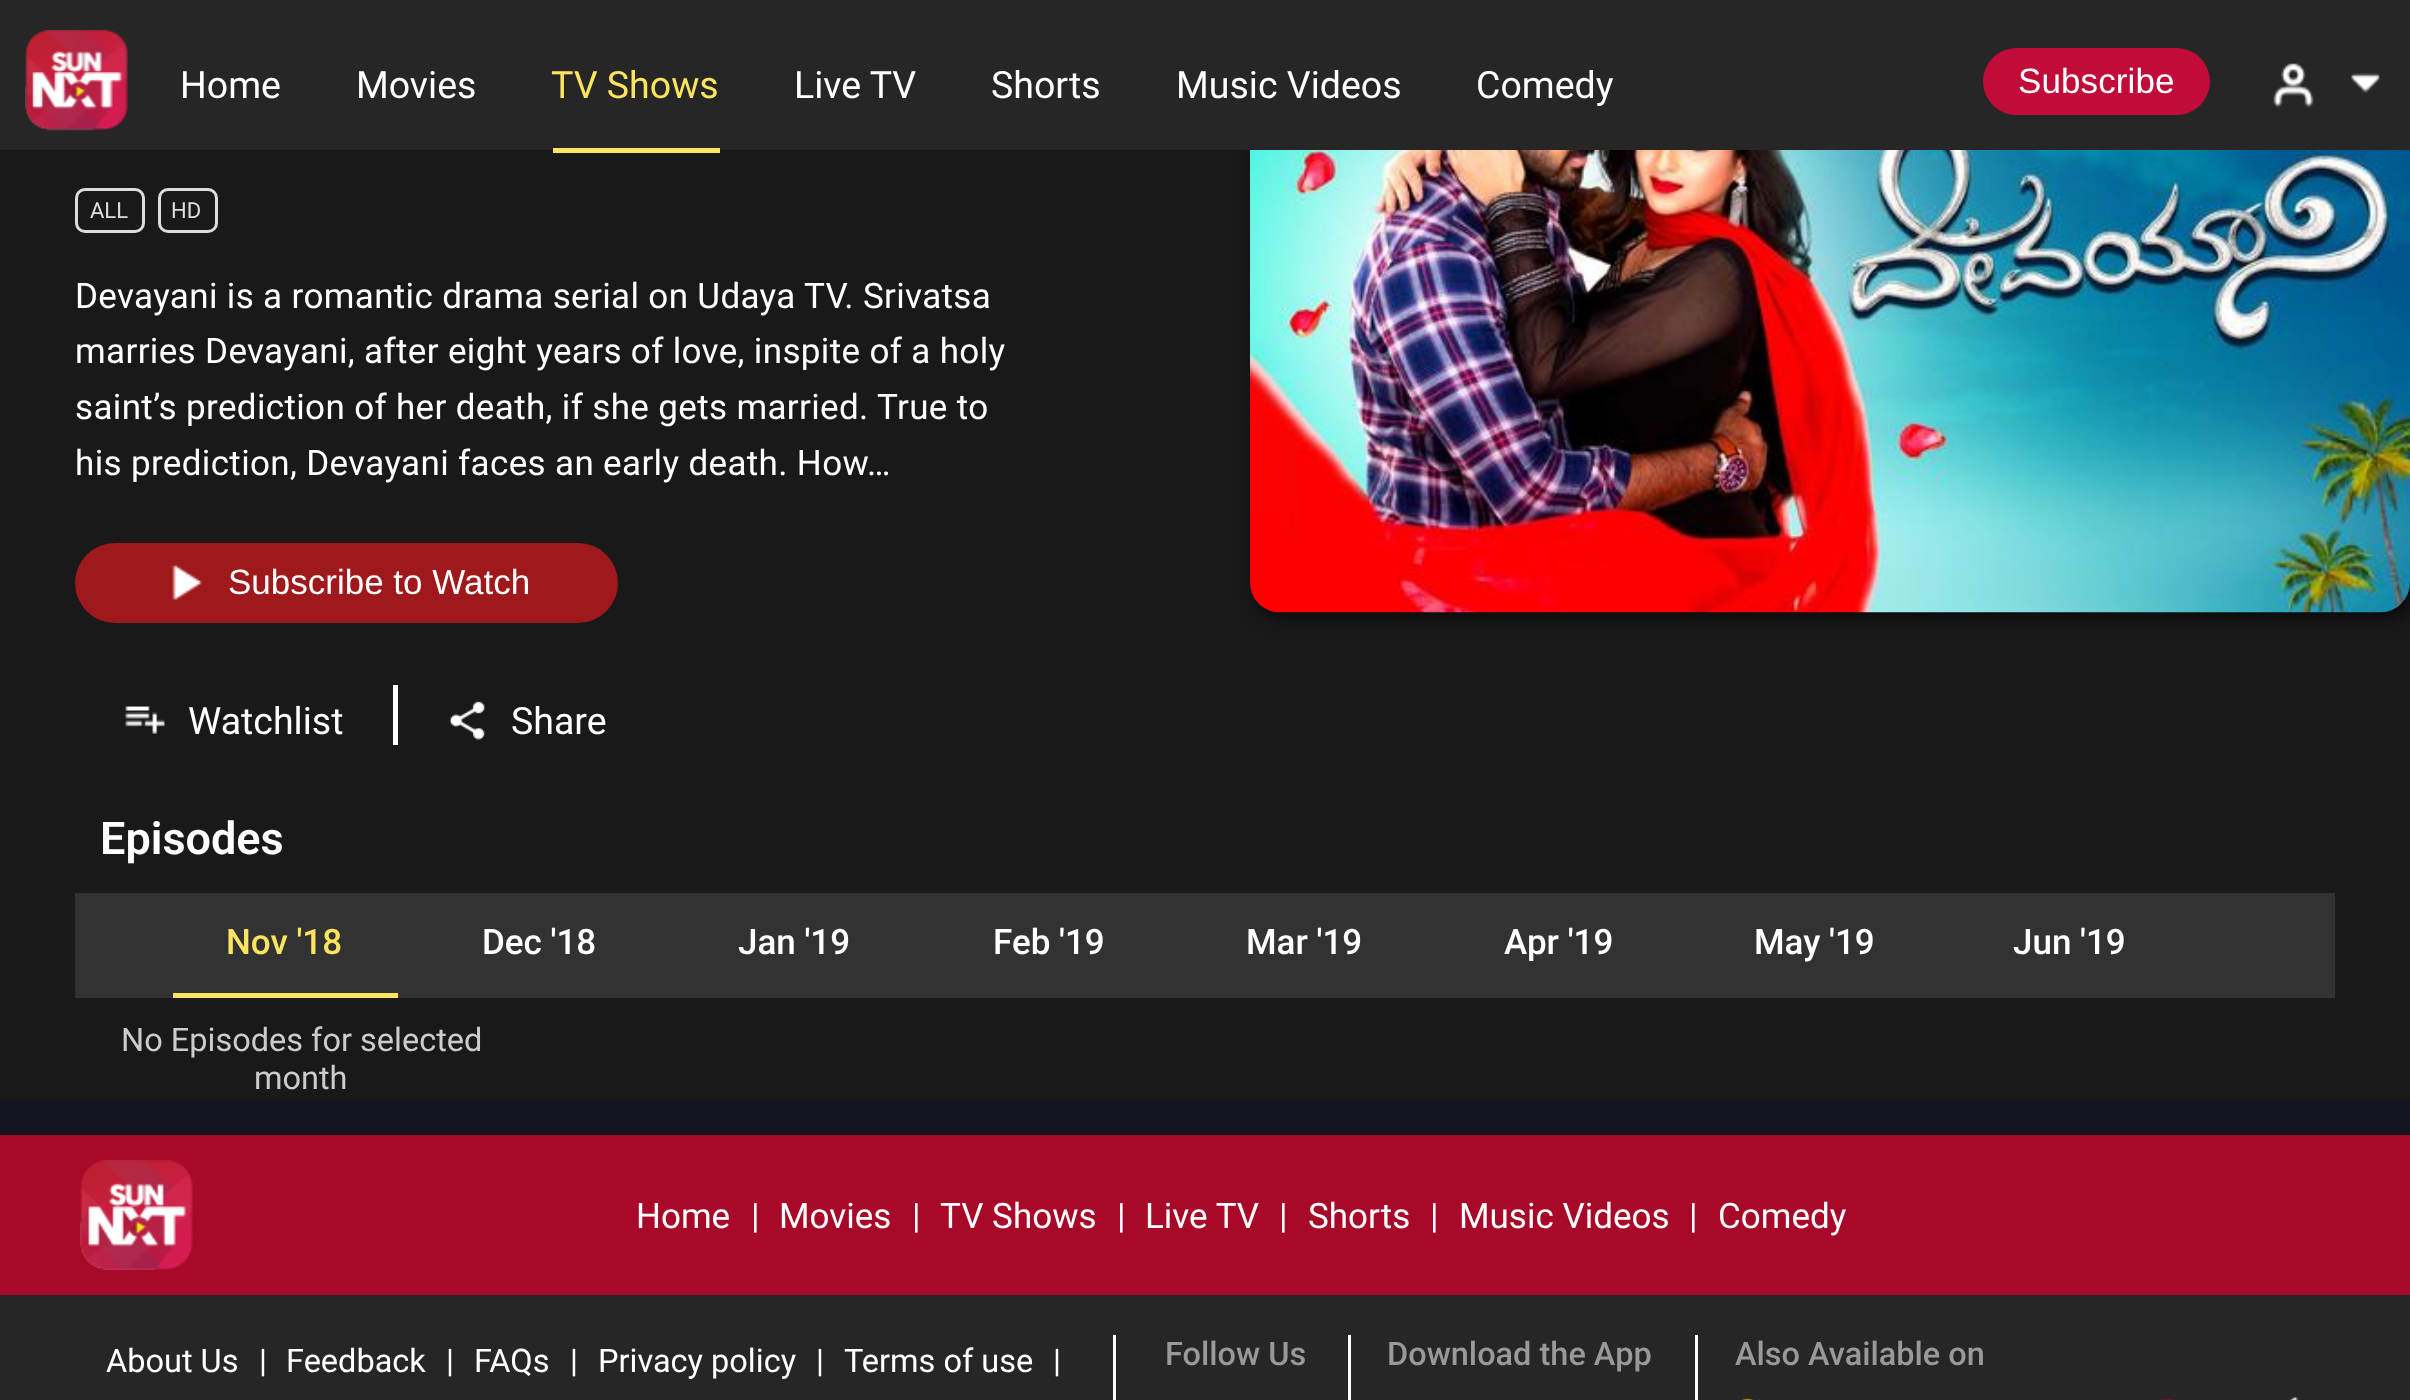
async function draw(canvas) {
  canvas.width = 2410
  canvas.height = 1400
  const ctx = canvas.getContext('2d')
  ctx.miterLimit = 4
  ctx.fontKerning = 'normal'
  async function loadImage(src) {
    const img = new Image()
    img.src = src
    await img.decode()
    return img
  }

  ctx.fillStyle = '#191919'
  ctx.fillRect(0, 0, 2410, 1400)
  ctx.fillStyle = '#00000099'
  ctx.filter = 'blur(7.5px)'
  ctx.beginPath()
  ctx.roundRect(1255, -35, 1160, 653, 30)
  ctx.fill()
  ctx.filter = 'none'
  ctx.fillStyle = '#262626'
  ctx.fillRect(0, 0, 2410, 150)
  ctx.drawImage(await loadImage('image0.png'), 25, 30, 103, 101)
  ctx.font = '37.5px Roboto'
  ctx.fillStyle = '#fff'
  ctx.fillText('Home', 180, 98)
  ctx.fillText('Movies', 356, 98)
  ctx.fillStyle = '#fce45e'
  ctx.fillRect(553, 148, 167, 5)
  ctx.fillText('TV Shows', 551, 98)
  ctx.fillStyle = '#fff'
  ctx.fillText('Live TV', 794, 98)
  ctx.fillText('Shorts', 991, 98)
  ctx.fillText('Music Videos', 1176, 98)
  ctx.fillText('Comedy', 1476, 98)
  ctx.fillStyle = '#c10c3a'
  ctx.beginPath()
  ctx.roundRect(1983, 48, 227, 67, 33.5)
  ctx.fill()
  ctx.letterSpacing = '0.1px'
  ctx.font = '35px Liberation Sans'
  ctx.fillStyle = '#fff'
  ctx.fillText('Subscribe', 2018, 93)
  ctx.drawImage(await loadImage('image1.png'), 2273, 63, 107, 45)
  ctx.beginPath()
  ctx.roundRect(76.5, 189.5, 67, 42, 8.5)
  ctx.strokeStyle = '#ddd'
  ctx.lineWidth = 3
  ctx.stroke()
  ctx.letterSpacing = '0px'
  ctx.font = '22px Roboto'
  ctx.fillStyle = '#ddd'
  ctx.fillText('ALL', 90, 218)
  ctx.beginPath()
  ctx.roundRect(159.5, 189.5, 57, 42, 8.5)
  ctx.stroke()
  ctx.fillText('HD', 171, 218)
  ctx.letterSpacing = '0.35px'
  ctx.font = '35px Roboto'
  ctx.fillStyle = '#fff'
  ctx.fillText('Devayani is a romantic drama serial on Udaya TV. Srivatsa', 75, 308)
  ctx.fillText('marries Devayani, after eight years of love, inspite of a holy', 75, 363)
  ctx.fillText('saint’s prediction of her death, if she gets married. True to', 75, 419)
  ctx.fillText('his prediction, Devayani faces an early death. How…', 75, 475)
  ctx.fillStyle = '#9f181b'
  ctx.beginPath()
  ctx.roundRect(75, 543, 543, 80, 40)
  ctx.fill()
  ctx.drawImage(await loadImage('image2.png'), 172, 565, 31, 35)
  ctx.letterSpacing = '0px'
  ctx.font = '35px Liberation Sans'
  ctx.fillStyle = '#fff'
  ctx.fillText('Subscribe to Watch', 228, 594)
  ctx.fillRect(393, 685, 5, 60)
  ctx.drawImage(await loadImage('image3.png'), 125, 706, 40, 28)
  ctx.font = '37.5px Roboto'
  ctx.fillText('Watchlist', 188, 734)
  ctx.drawImage(await loadImage('image4.png'), 449, 701, 36, 39)
  ctx.fillText('Share', 511, 734)
  ctx.drawImage(await loadImage('image5.png'), 1250, 150, 1160, 463)
  ctx.font = '600 45px Roboto'
  ctx.fillText('Episodes', 100, 854)
  ctx.fillStyle = '#323232'
  ctx.fillRect(75, 893, 2260, 105)
  ctx.fillStyle = '#fce45e'
  ctx.fillRect(173, 993, 225, 5)
  ctx.font = '500 35px Roboto'
  ctx.fillText('Nov \'18', 226, 954)
  ctx.fillStyle = '#fff'
  ctx.fillText('Dec \'18', 482, 954)
  ctx.fillText('Jan \'19', 738, 954)
  ctx.fillText('Feb \'19', 993, 954)
  ctx.fillText('Mar \'19', 1246, 954)
  ctx.fillText('Apr \'19', 1504, 954)
  ctx.fillText('May \'19', 1754, 954)
  ctx.fillText('Jun \'19', 2013, 954)
  ctx.font = '32.5px Roboto'
  ctx.fillStyle = '#ccc'
  ctx.fillText('No Episodes for selected', 121, 1051)
  ctx.fillText('month', 254, 1089)
  ctx.fillStyle = '#151522'
  ctx.fillRect(0, 1100, 2410, 35)
  ctx.fillStyle = '#a80929'
  ctx.fillRect(0, 1135, 2410, 160)
  ctx.drawImage(await loadImage('image6.png'), 80, 1160, 113, 110)
  ctx.font = '35px Roboto'
  ctx.fillStyle = '#fff'
  ctx.fillText('Home', 636, 1228)
  ctx.fillText('|', 751, 1228)
  ctx.fillText('Movies', 779, 1228)
  ctx.fillText('|', 912, 1228)
  ctx.fillText('TV Shows', 940, 1228)
  ctx.fillText('|', 1117, 1228)
  ctx.fillText('Live TV', 1145, 1228)
  ctx.fillText('|', 1279, 1228)
  ctx.fillText('Shorts', 1308, 1228)
  ctx.fillText('|', 1430, 1228)
  ctx.fillText('Music Videos', 1459, 1228)
  ctx.fillText('|', 1689, 1228)
  ctx.fillText('Comedy', 1718, 1228)
  ctx.fillStyle = '#262626'
  ctx.fillRect(0, 1295, 2410, 105)
  ctx.fillStyle = '#fff'
  ctx.fillRect(1113, 1335, 3, 65)
  ctx.font = '32.5px Roboto'
  ctx.fillText('About Us', 106, 1372)
  ctx.fillText('|', 259, 1372)
  ctx.fillText('Feedback', 286, 1372)
  ctx.fillText('|', 446, 1372)
  ctx.fillText('FAQs', 474, 1372)
  ctx.fillText('|', 570, 1372)
  ctx.fillText('Privacy policy', 598, 1372)
  ctx.fillText('|', 816, 1372)
  ctx.fillText('Terms of use', 844, 1372)
  ctx.fillText('|', 1053, 1372)
  ctx.fillRect(1348, 1335, 3, 65)
  ctx.font = '500 32.5px Roboto'
  ctx.fillStyle = '#999'
  ctx.fillText('Follow Us', 1165, 1365)
  ctx.fillStyle = '#fff'
  ctx.fillRect(1695, 1335, 3, 65)
  ctx.fillStyle = '#999'
  ctx.fillText('Download the App', 1387, 1365)
  ctx.fillText('Also Available on', 1735, 1365)
  ctx.drawImage(await loadImage('image7.png'), 1741, 1397, 558, 3)
}

draw(document.querySelector('canvas'))
